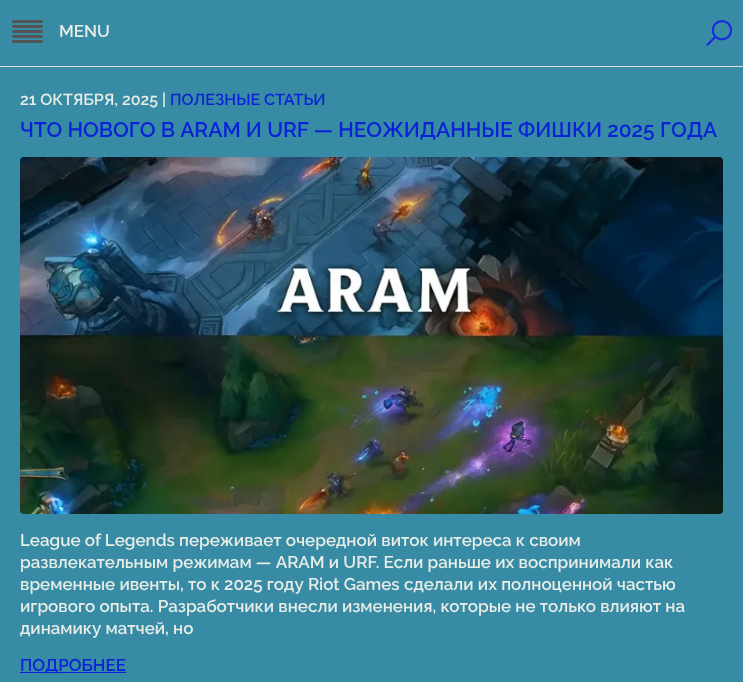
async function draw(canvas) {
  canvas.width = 743
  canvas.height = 682
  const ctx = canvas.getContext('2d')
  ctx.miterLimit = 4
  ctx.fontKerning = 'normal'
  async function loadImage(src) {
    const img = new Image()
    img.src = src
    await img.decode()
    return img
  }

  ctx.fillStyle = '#378ba4'
  ctx.fillRect(0, 0, 743, 682)
  ctx.fillStyle = '#ddd'
  ctx.fillRect(0, 66, 743, 1)
  ctx.drawImage(await loadImage('image0.png'), 12, 20, 31, 23)
  ctx.font = '600 17px Raleway'
  ctx.fillStyle = '#e8ede7'
  ctx.fillText('MENU', 59, 37)
  ctx.drawImage(await loadImage('image1.png'), 706, 20, 26, 26)
  ctx.font = '600 16px Raleway'
  ctx.fillText('21 ОКТЯБРЯ, 2025 |', 20, 105)
  ctx.fillStyle = '#0a22d7'
  ctx.fillText('ПОЛЕЗНЫЕ СТАТЬИ', 170, 105)
  ctx.font = '600 21px Raleway'
  ctx.fillText('ЧТО НОВОГО В ARAM И URF — НЕОЖИДАННЫЕ ФИШКИ 2025 ГОДА', 20, 137)
  ctx.drawImage(await loadImage('image2.png'), 20, 157, 703, 357)
  ctx.font = '600 17px Raleway'
  ctx.fillStyle = '#e8ede7'
  ctx.fillText('League of Legends переживает очередной виток интереса к своим', 20, 546)
  ctx.fillText('развлекательным режимам — ARAM и URF. Если раньше их воспринимали как', 20, 568)
  ctx.fillText('временные ивенты, то к 2025 году Riot Games сделали их полноценной частью', 20, 590)
  ctx.fillText('игрового опыта. Разработчики внесли изменения, которые не только влияют на', 20, 612)
  ctx.fillText('динамику матчей, но', 20, 634)
  ctx.fillStyle = '#0a22d7'
  ctx.fillRect(20, 672, 106, 1)
  ctx.fillText('ПОДРОБНЕЕ', 20, 671)
}

draw(document.querySelector('canvas'))
